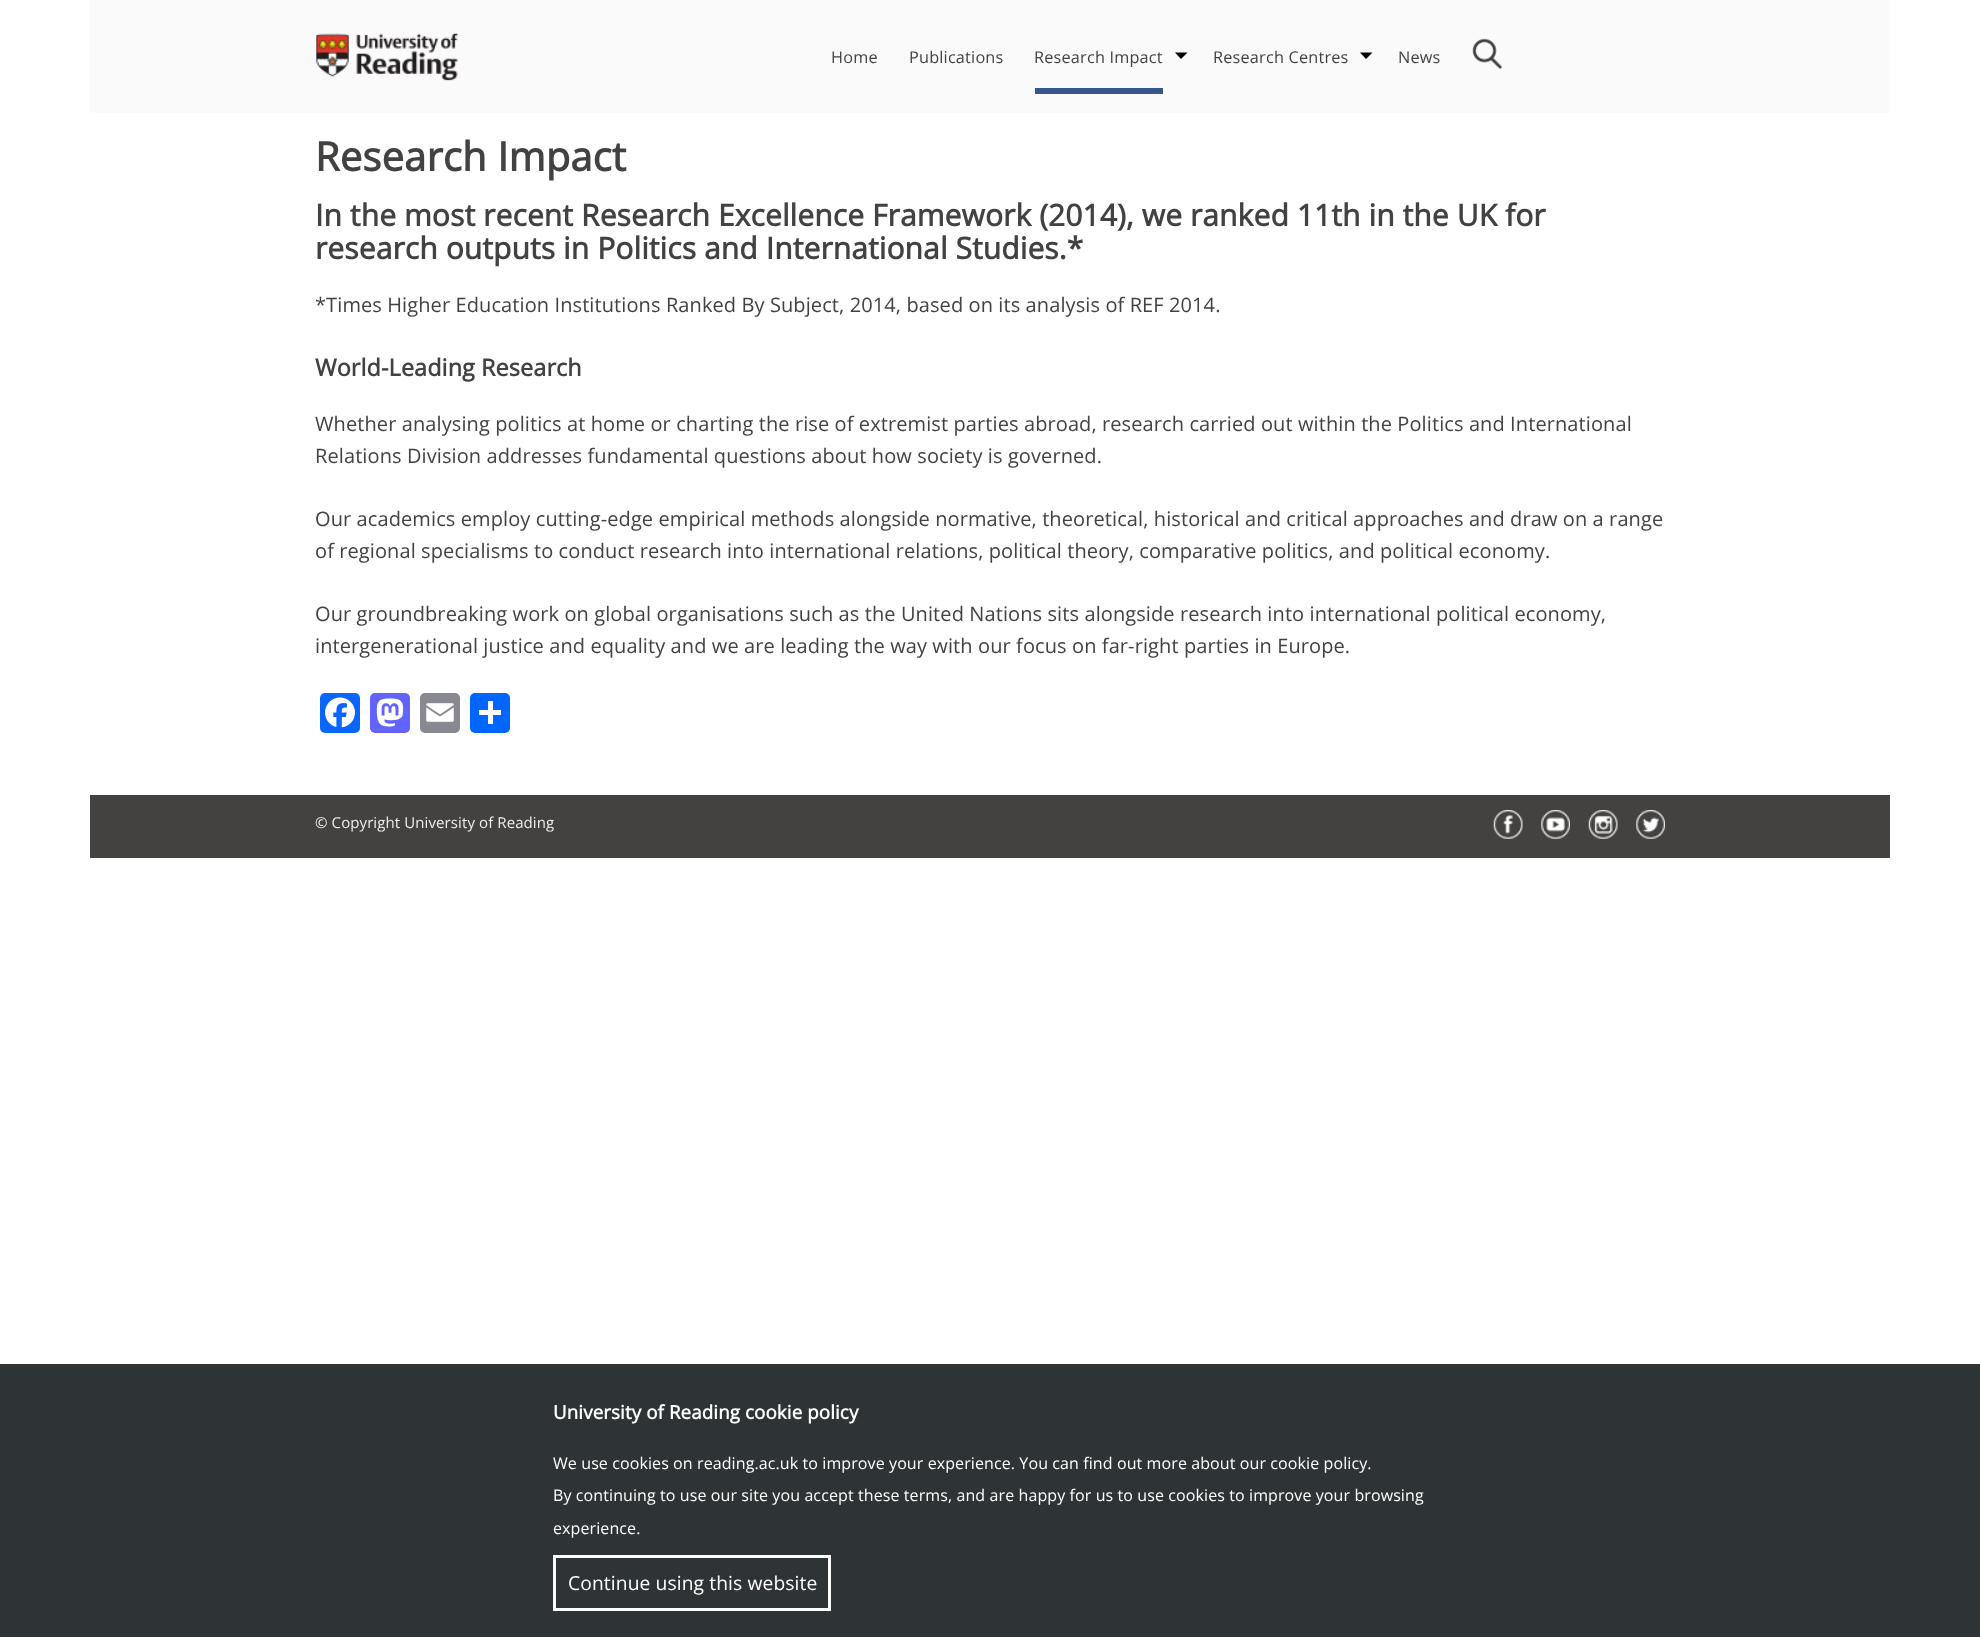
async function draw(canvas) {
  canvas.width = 1980
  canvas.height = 1637
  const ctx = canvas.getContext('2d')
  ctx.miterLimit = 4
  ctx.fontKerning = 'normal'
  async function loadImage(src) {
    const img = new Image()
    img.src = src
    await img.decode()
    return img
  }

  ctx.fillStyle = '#fff'
  ctx.fillRect(0, 0, 1980, 1637)
  ctx.fillStyle = '#fbfafa'
  ctx.fillRect(90, 0, 1800, 113)
  ctx.drawImage(await loadImage('image0.png'), 316, 33, 142, 48)
  ctx.letterSpacing = '0.2px'
  ctx.font = '16.25px Open Sans'
  ctx.fillStyle = '#434241'
  ctx.fillText('Home', 831, 63)
  ctx.fillText('Publications', 909, 63)
  ctx.fillText('Research Impact', 1034, 63)
  ctx.fillStyle = '#000'
  ctx.beginPath()
  ctx.moveTo(1175, 52.5)
  ctx.lineTo(1187.5, 52.5)
  ctx.lineTo(1181, 59)
  ctx.closePath()
  ctx.fill()
  ctx.fillStyle = '#36578c'
  ctx.fillRect(1035, 88, 128, 6)
  ctx.fillStyle = '#434241'
  ctx.fillText('Research Centres', 1213, 63)
  ctx.fillStyle = '#000'
  ctx.beginPath()
  ctx.moveTo(1360, 52.5)
  ctx.lineTo(1372.5, 52.5)
  ctx.lineTo(1366, 59)
  ctx.closePath()
  ctx.fill()
  ctx.fillStyle = '#434241'
  ctx.fillText('News', 1398, 63)
  ctx.drawImage(await loadImage('image1.png'), 1472, 38, 30, 31)
  ctx.letterSpacing = '0.1px'
  ctx.font = 'bold 40px Open Sans'
  ctx.fillText('Research Impact', 315, 171)
  ctx.font = 'bold 30px Open Sans'
  ctx.fillText('In the most recent Research Excellence Framework (2014), we ranked 11th in the UK for', 315, 226)
  ctx.fillText('research outputs in Politics and International Studies.*', 315, 259)
  ctx.font = '20px Open Sans'
  ctx.fillText('*Times Higher Education Institutions Ranked By Subject, 2014, based on its analysis of REF 2014.', 315, 312)
  ctx.font = 'bold 23.4px Open Sans'
  ctx.fillText('World-Leading Research', 315, 376)
  ctx.font = '20px Open Sans'
  ctx.fillText('Whether analysing politics at home or charting the rise of extremist parties abroad, research carried out within the Politics and International', 315, 431)
  ctx.fillText('Relations Division addresses fundamental questions about how society is governed.', 315, 463)
  ctx.fillText('Our academics employ cutting-edge empirical methods alongside normative, theoretical, historical and critical approaches and draw on a range', 315, 526)
  ctx.fillText('of regional specialisms to conduct research into international relations, political theory, comparative politics, and political economy.', 315, 558)
  ctx.fillText('Our groundbreaking work on global organisations such as the United Nations sits alongside research into international political economy,', 315, 621)
  ctx.fillText('intergenerational justice and equality and we are leading the way with our focus on far-right parties in Europe.', 315, 653)
  ctx.fillStyle = '#0866ff'
  ctx.beginPath()
  ctx.roundRect(320, 693, 40, 40, 5)
  ctx.fill()
  ctx.drawImage(await loadImage('image2.png'), 325, 697, 30, 31)
  ctx.fillStyle = '#6364ff'
  ctx.beginPath()
  ctx.roundRect(370, 693, 40, 40, 5)
  ctx.fill()
  ctx.drawImage(await loadImage('image3.png'), 376, 698, 28, 29)
  ctx.fillStyle = '#888990'
  ctx.beginPath()
  ctx.roundRect(420, 693, 40, 40, 5)
  ctx.fill()
  ctx.drawImage(await loadImage('image4.png'), 426, 703, 28, 19)
  ctx.fillStyle = '#0166ff'
  ctx.beginPath()
  ctx.roundRect(470, 693, 40, 40, 5)
  ctx.fill()
  ctx.fillStyle = '#fff'
  ctx.fillRect(488, 701, 5, 23)
  ctx.fillRect(479, 710, 22, 5)
  ctx.fillStyle = '#434241'
  ctx.fillRect(90, 795, 1800, 63)
  ctx.font = '15px Open Sans'
  ctx.fillStyle = '#eee'
  ctx.fillText('© Copyright University of Reading', 315, 828)
  ctx.drawImage(await loadImage('image5.png'), 1493, 810, 30, 29)
  ctx.drawImage(await loadImage('image6.png'), 1541, 810, 29, 29)
  ctx.drawImage(await loadImage('image7.png'), 1588, 810, 30, 29)
  ctx.drawImage(await loadImage('image8.png'), 1636, 810, 29, 29)
  ctx.fillStyle = '#2e3336'
  ctx.fillRect(0, 1364, 1980, 273)
  ctx.font = 'bold 18.75px Open Sans'
  ctx.fillStyle = '#fff'
  ctx.fillText('University of Reading cookie policy', 553, 1419)
  ctx.font = '16px Open Sans'
  ctx.fillText('We use cookies on reading.ac.uk to improve your experience. You can find out more about our cookie policy.', 553, 1469)
  ctx.fillText('By continuing to use our site you accept these terms, and are happy for us to use cookies to improve your browsing', 553, 1501)
  ctx.fillText('experience.', 553, 1534)
  ctx.strokeStyle = '#fff'
  ctx.lineWidth = 3
  ctx.strokeRect(554.5, 1556.5, 275, 53)
  ctx.font = '19.25px Open Sans'
  ctx.fillText('Continue using this website', 568, 1590)
}

draw(document.querySelector('canvas'))
